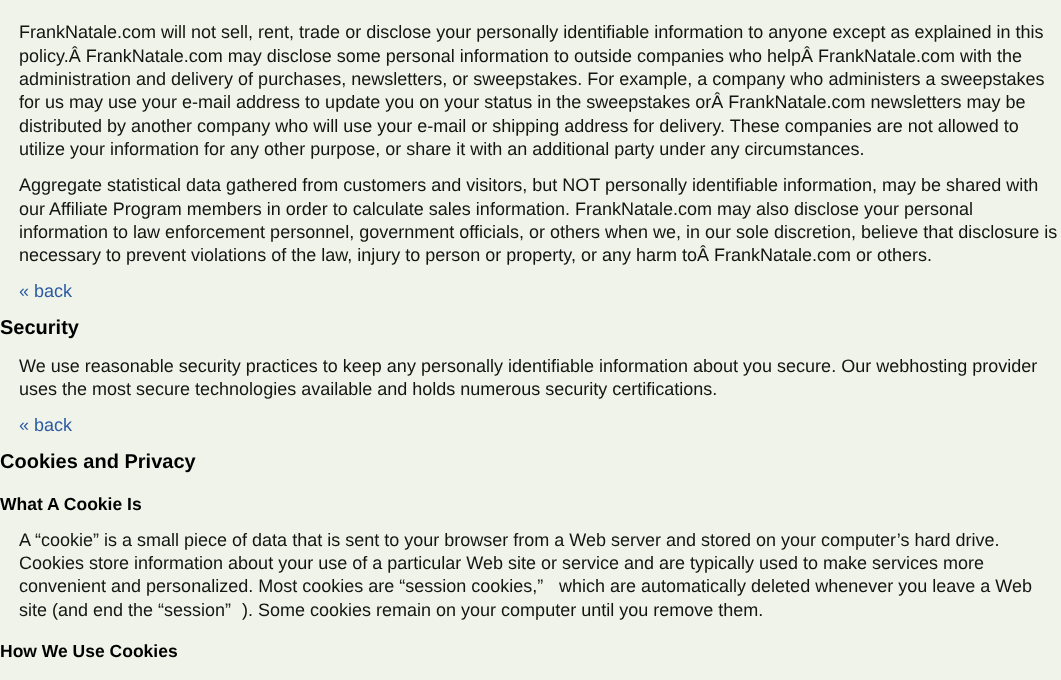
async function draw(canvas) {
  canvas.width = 1061
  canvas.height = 680
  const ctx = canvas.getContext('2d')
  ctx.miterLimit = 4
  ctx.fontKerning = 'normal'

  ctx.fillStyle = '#f0f3e9'
  ctx.fillRect(0, 0, 1061, 680)
  ctx.font = '18px Liberation Sans'
  ctx.fillStyle = '#141412'
  ctx.fillText('FrankNatale.com will not sell, rent, trade or disclose your personally identifiable information to anyone except as explained in this', 19, 38)
  ctx.fillText('policy.Â FrankNatale.com may disclose some personal information to outside companies who helpÂ FrankNatale.com with the', 19, 62)
  ctx.fillText('administration and delivery of purchases, newsletters, or sweepstakes. For example, a company who administers a sweepstakes', 19, 85)
  ctx.fillText('for us may use your e-mail address to update you on your status in the sweepstakes orÂ FrankNatale.com newsletters may be', 19, 108)
  ctx.fillText('distributed by another company who will use your e-mail or shipping address for delivery. These companies are not allowed to', 19, 132)
  ctx.fillText('utilize your information for any other purpose, or share it with an additional party under any circumstances.', 19, 155)
  ctx.fillText('Aggregate statistical data gathered from customers and visitors, but NOT personally identifiable information, may be shared with', 19, 191)
  ctx.fillText('our Affiliate Program members in order to calculate sales information. FrankNatale.com may also disclose your personal', 19, 215)
  ctx.fillText('information to law enforcement personnel, government officials, or others when we, in our sole discretion, believe that disclosure is', 19, 238)
  ctx.fillText('necessary to prevent violations of the law, injury to person or property, or any harm toÂ FrankNatale.com or others.', 19, 261)
  ctx.fillStyle = '#2b5ca3'
  ctx.fillText('« back', 19, 297)
  ctx.font = 'bold 20px Liberation Sans'
  ctx.fillStyle = '#000'
  ctx.fillText('Security', 0, 334)
  ctx.font = '18px Liberation Sans'
  ctx.fillStyle = '#141412'
  ctx.fillText('We use reasonable security practices to keep any personally identifiable information about you secure. Our webhosting provider', 19, 372)
  ctx.fillText('uses the most secure technologies available and holds numerous security certifications.', 19, 395)
  ctx.fillStyle = '#2b5ca3'
  ctx.fillText('« back', 19, 431)
  ctx.font = 'bold 20px Liberation Sans'
  ctx.fillStyle = '#000'
  ctx.fillText('Cookies and Privacy', 0, 468)
  ctx.font = 'bold 17.5px Liberation Sans'
  ctx.fillText('What A Cookie Is', 0, 510)
  ctx.font = '18px Liberation Sans'
  ctx.fillStyle = '#141412'
  ctx.fillText('A “cookie” is a small piece of data that is sent to your browser from a Web server and stored on your computer’s hard drive.', 19, 546)
  ctx.fillText('Cookies store information about your use of a particular Web site or service and are typically used to make services more', 19, 569)
  ctx.fillText('convenient and personalized. Most cookies are “session cookies,”', 19, 592)
  ctx.fillText('which are automatically deleted whenever you leave a Web', 559, 592)
  ctx.fillText('site (and end the “session”', 19, 616)
  ctx.fillText('). Some cookies remain on your computer until you remove them.', 242, 616)
  ctx.font = 'bold 17.5px Liberation Sans'
  ctx.fillStyle = '#000'
  ctx.fillText('How We Use Cookies', 0, 657)
}

draw(document.querySelector('canvas'))
